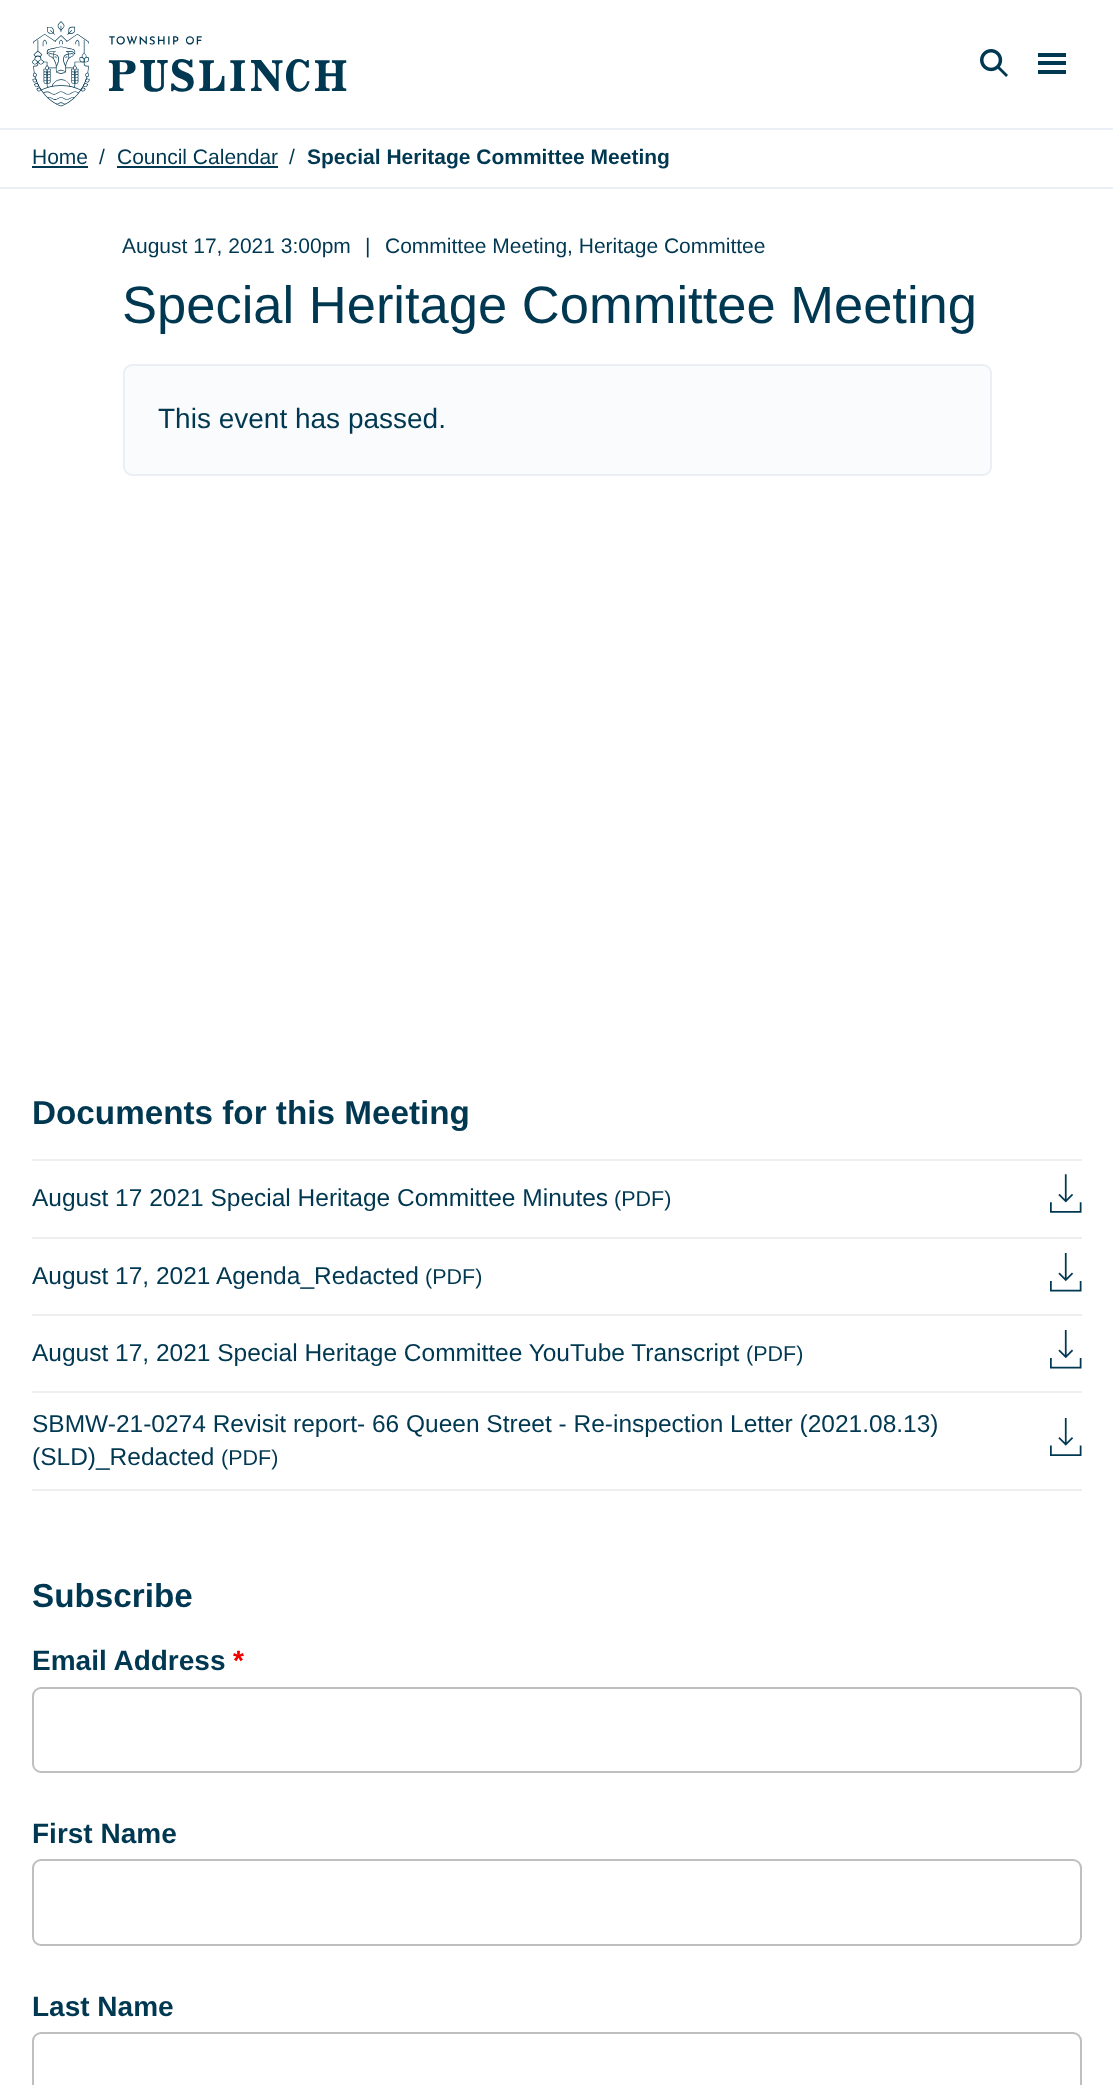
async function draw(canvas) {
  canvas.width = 1113
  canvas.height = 2085
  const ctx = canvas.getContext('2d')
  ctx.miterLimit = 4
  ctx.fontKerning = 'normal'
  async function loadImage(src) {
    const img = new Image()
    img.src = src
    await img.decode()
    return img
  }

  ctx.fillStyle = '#fff'
  ctx.fillRect(0, 0, 1113, 2085)
  ctx.fillStyle = '#e9eff4'
  ctx.fillRect(0, 187, 1113, 2)
  ctx.drawImage(await loadImage('image0.png'), 32, 21, 315, 86)
  ctx.drawImage(await loadImage('image1.png'), 980, 49, 28, 28)
  ctx.fillStyle = '#003852'
  ctx.fillRect(1038, 61, 28, 4)
  ctx.fillRect(1038, 53, 28, 4)
  ctx.fillRect(1038, 70, 28, 4)
  ctx.fillStyle = '#e9eff4'
  ctx.fillRect(0, 128, 1113, 2)
  ctx.font = '21px Liberation Sans'
  ctx.fillStyle = '#003852'
  ctx.fillText('Home', 32, 164)
  ctx.fillRect(32, 166, 56, 2)
  ctx.fillText('/', 99, 164)
  ctx.fillText('Council Calendar', 117, 164)
  ctx.fillRect(117, 166, 161, 2)
  ctx.fillText('/', 289, 164)
  ctx.font = 'bold 21px Liberation Sans'
  ctx.fillText('Special Heritage Committee Meeting', 307, 164)
  ctx.font = '21px Liberation Sans'
  ctx.fillText('August 17, 2021 3:00pm', 122, 253)
  ctx.fillText('|', 365, 253)
  ctx.fillText('Committee Meeting, Heritage Committee', 385, 253)
  ctx.font = '52.5px Liberation Sans'
  ctx.fillText('Special Heritage Committee Meeting', 122, 323)
  ctx.fillStyle = '#fafbfc'
  ctx.beginPath()
  ctx.roundRect(124, 365, 867, 110, 8)
  ctx.fill()
  ctx.strokeStyle = '#e9eff4'
  ctx.lineWidth = 2
  ctx.stroke()
  ctx.font = '28px Liberation Sans'
  ctx.fillStyle = '#003852'
  ctx.fillText('This event has passed.', 158, 428)
  ctx.font = 'bold 33.25px Liberation Sans'
  ctx.fillText('Documents for this Meeting', 32, 1124)
  ctx.fillStyle = '#eee'
  ctx.fillRect(32, 1159, 1050, 2)
  ctx.fillRect(32, 1237, 1050, 2)
  ctx.font = '24.5px Liberation Sans'
  ctx.fillStyle = '#003852'
  ctx.fillText('August 17 2021 Special Heritage Committee Minutes', 32, 1206)
  ctx.font = '21.5px Liberation Sans'
  ctx.fillText('(PDF)', 614, 1206)
  ctx.drawImage(await loadImage('image2.png'), 1050, 1174, 32, 39)
  ctx.fillStyle = '#eee'
  ctx.fillRect(32, 1314, 1050, 2)
  ctx.font = '24.5px Liberation Sans'
  ctx.fillStyle = '#003852'
  ctx.fillText('August 17, 2021 Agenda_Redacted', 32, 1284)
  ctx.font = '21.5px Liberation Sans'
  ctx.fillText('(PDF)', 425, 1284)
  ctx.drawImage(await loadImage('image3.png'), 1050, 1253, 32, 39)
  ctx.fillStyle = '#eee'
  ctx.fillRect(32, 1391, 1050, 2)
  ctx.font = '24.5px Liberation Sans'
  ctx.fillStyle = '#003852'
  ctx.fillText('August 17, 2021 Special Heritage Committee YouTube Transcript', 32, 1361)
  ctx.font = '21.5px Liberation Sans'
  ctx.fillText('(PDF)', 746, 1361)
  ctx.drawImage(await loadImage('image3.png'), 1050, 1330, 32, 39)
  ctx.fillStyle = '#eee'
  ctx.fillRect(32, 1489, 1050, 2)
  ctx.font = '24.5px Liberation Sans'
  ctx.fillStyle = '#003852'
  ctx.fillText('SBMW-21-0274 Revisit report- 66 Queen Street - Re-inspection Letter (2021.08.13)', 32, 1432)
  ctx.fillText('(SLD)_Redacted', 32, 1465)
  ctx.font = '21.5px Liberation Sans'
  ctx.fillText('(PDF)', 221, 1465)
  ctx.drawImage(await loadImage('image4.png'), 1050, 1418, 32, 38)
  ctx.font = 'bold 33.25px Liberation Sans'
  ctx.fillText('Subscribe', 32, 1607)
  ctx.font = 'bold 28px Liberation Sans'
  ctx.fillText('Email Address', 32, 1670)
  ctx.fillStyle = '#e00'
  ctx.fillText('*', 233, 1670)
  ctx.beginPath()
  ctx.roundRect(33, 1688, 1048, 84, 8)
  ctx.strokeStyle = '#bfbfbf'
  ctx.stroke()
  ctx.fillStyle = '#003852'
  ctx.fillText('First Name', 32, 1843)
  ctx.beginPath()
  ctx.roundRect(33, 1860, 1048, 85, 8)
  ctx.stroke()
  ctx.fillText('Last Name', 32, 2016)
  ctx.beginPath()
  ctx.roundRect(33, 2033, 1048, 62, 8)
  ctx.stroke()
}

draw(document.querySelector('canvas'))
